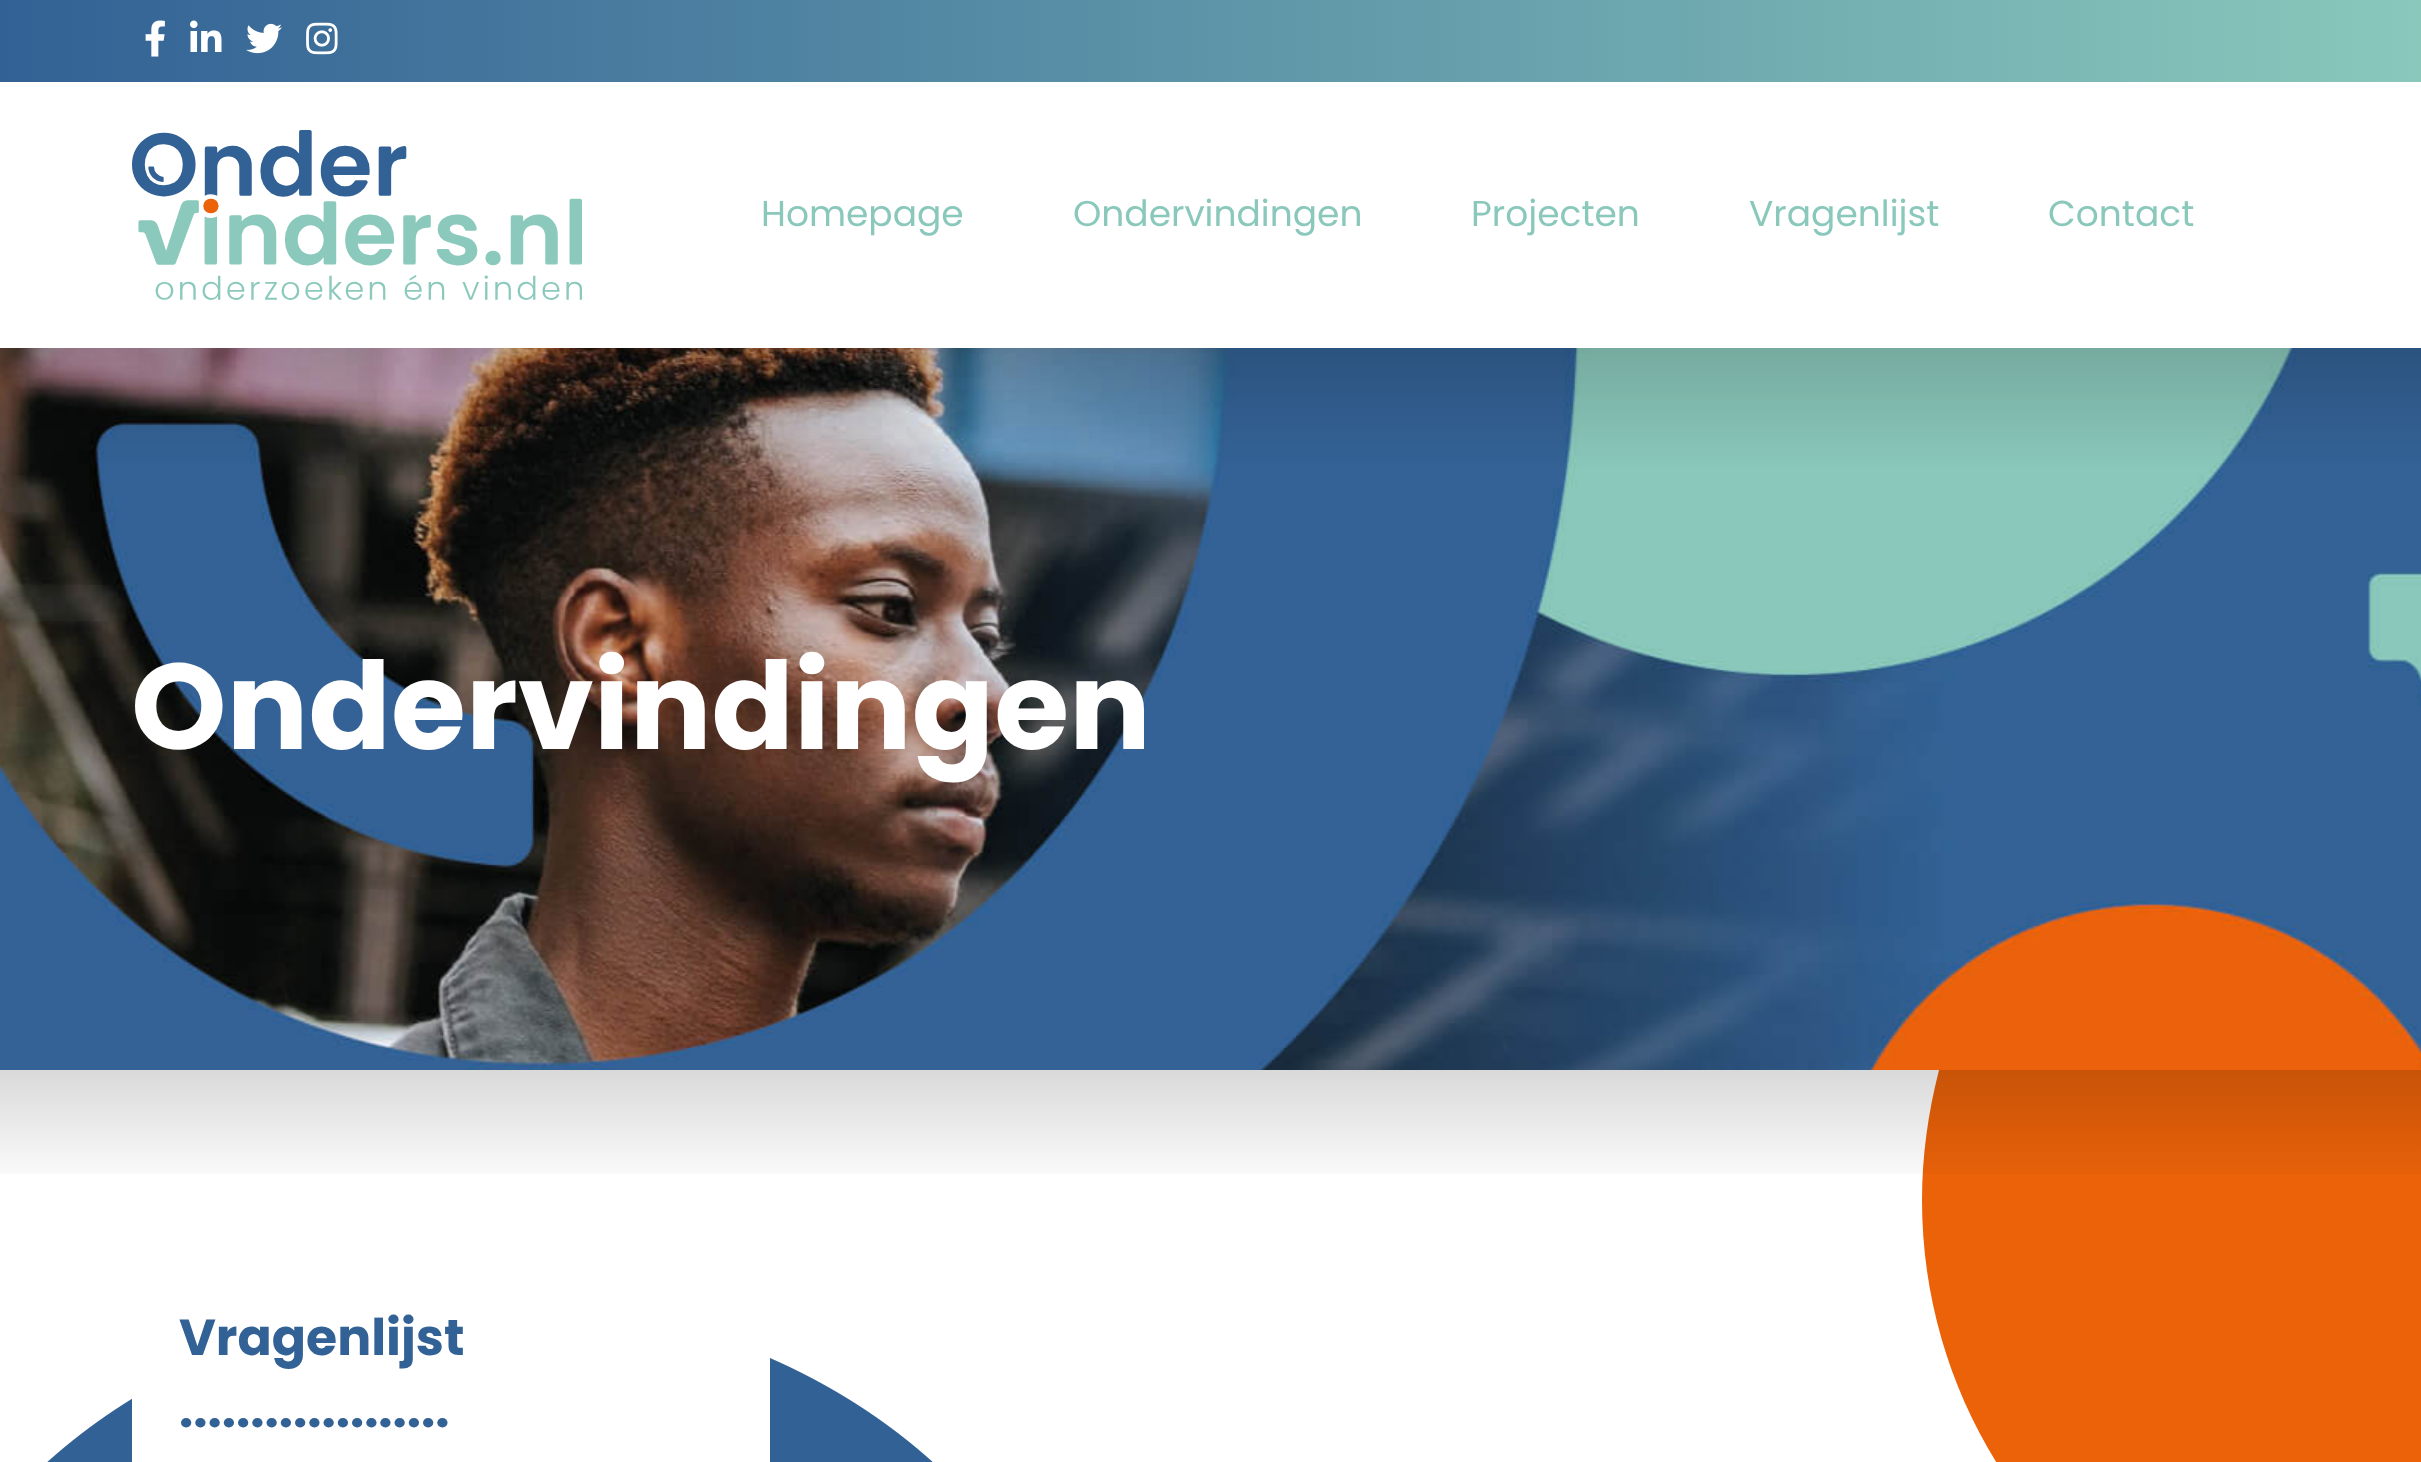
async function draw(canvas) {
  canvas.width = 2421
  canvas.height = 1462
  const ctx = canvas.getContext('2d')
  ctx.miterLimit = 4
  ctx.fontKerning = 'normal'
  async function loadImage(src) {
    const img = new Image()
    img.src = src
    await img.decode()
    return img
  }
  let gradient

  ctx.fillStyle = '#fff'
  ctx.fillRect(0, 0, 2421, 1462)
  ctx.drawImage(await loadImage('image0.png'), 0, 348, 2421, 722)
  gradient = ctx.createLinearGradient(0, 41, 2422, 41)
  gradient.addColorStop(0, '#326195')
  gradient.addColorStop(1, '#89c8bb')
  ctx.fillStyle = gradient
  ctx.fillRect(0, 0, 2421, 82)
  ctx.drawImage(await loadImage('image1.png'), 145, 20, 20, 37)
  ctx.drawImage(await loadImage('image2.png'), 190, 20, 32, 32)
  ctx.drawImage(await loadImage('image3.png'), 246, 23, 36, 31)
  ctx.drawImage(await loadImage('image4.png'), 306, 22, 32, 33)
  ctx.drawImage(await loadImage('image5.png'), 132, 130, 450, 170)
  ctx.font = '36px Poppins'
  ctx.fillStyle = '#89c8bb'
  ctx.fillText('Homepage', 761, 226)
  ctx.fillText('Ondervindingen', 1073, 226)
  ctx.fillText('Projecten', 1471, 226)
  ctx.fillText('Vragenlijst', 1749, 226)
  ctx.fillText('Contact', 2048, 226)
  ctx.font = 'bold 121.5px Poppins'
  ctx.fillStyle = '#fff'
  ctx.fillText('Ondervindingen', 131, 749)
  ctx.fillStyle = '#eb6209'
  ctx.beginPath()
  ctx.moveTo(1922, 1200)
  ctx.bezierCurveTo(1922, 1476, 2146, 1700, 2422, 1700)
  ctx.lineTo(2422, 1070)
  ctx.lineTo(1939, 1070)
  ctx.bezierCurveTo(1928, 1113, 1922, 1156, 1922, 1200)
  ctx.closePath()
  ctx.fill()
  gradient = ctx.createLinearGradient(1211, 1070, 1211, 1192)
  gradient.addColorStop(0, '#00000026')
  gradient.addColorStop(1, '#00000000')
  ctx.fillStyle = gradient
  ctx.fillRect(0, 1070, 2421, 104)
  ctx.drawImage(await loadImage('image6.png'), 47, 1358, 886, 104)
  ctx.fillStyle = '#fff'
  ctx.beginPath()
  ctx.roundRect(132, 1262, 638, 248, 48)
  ctx.fill()
  ctx.font = 'bold 50.5px Poppins'
  ctx.fillStyle = '#326195'
  ctx.fillText('Vragenlijst', 179, 1355)
  ctx.fillText('...................', 179, 1427)
}

draw(document.querySelector('canvas'))
